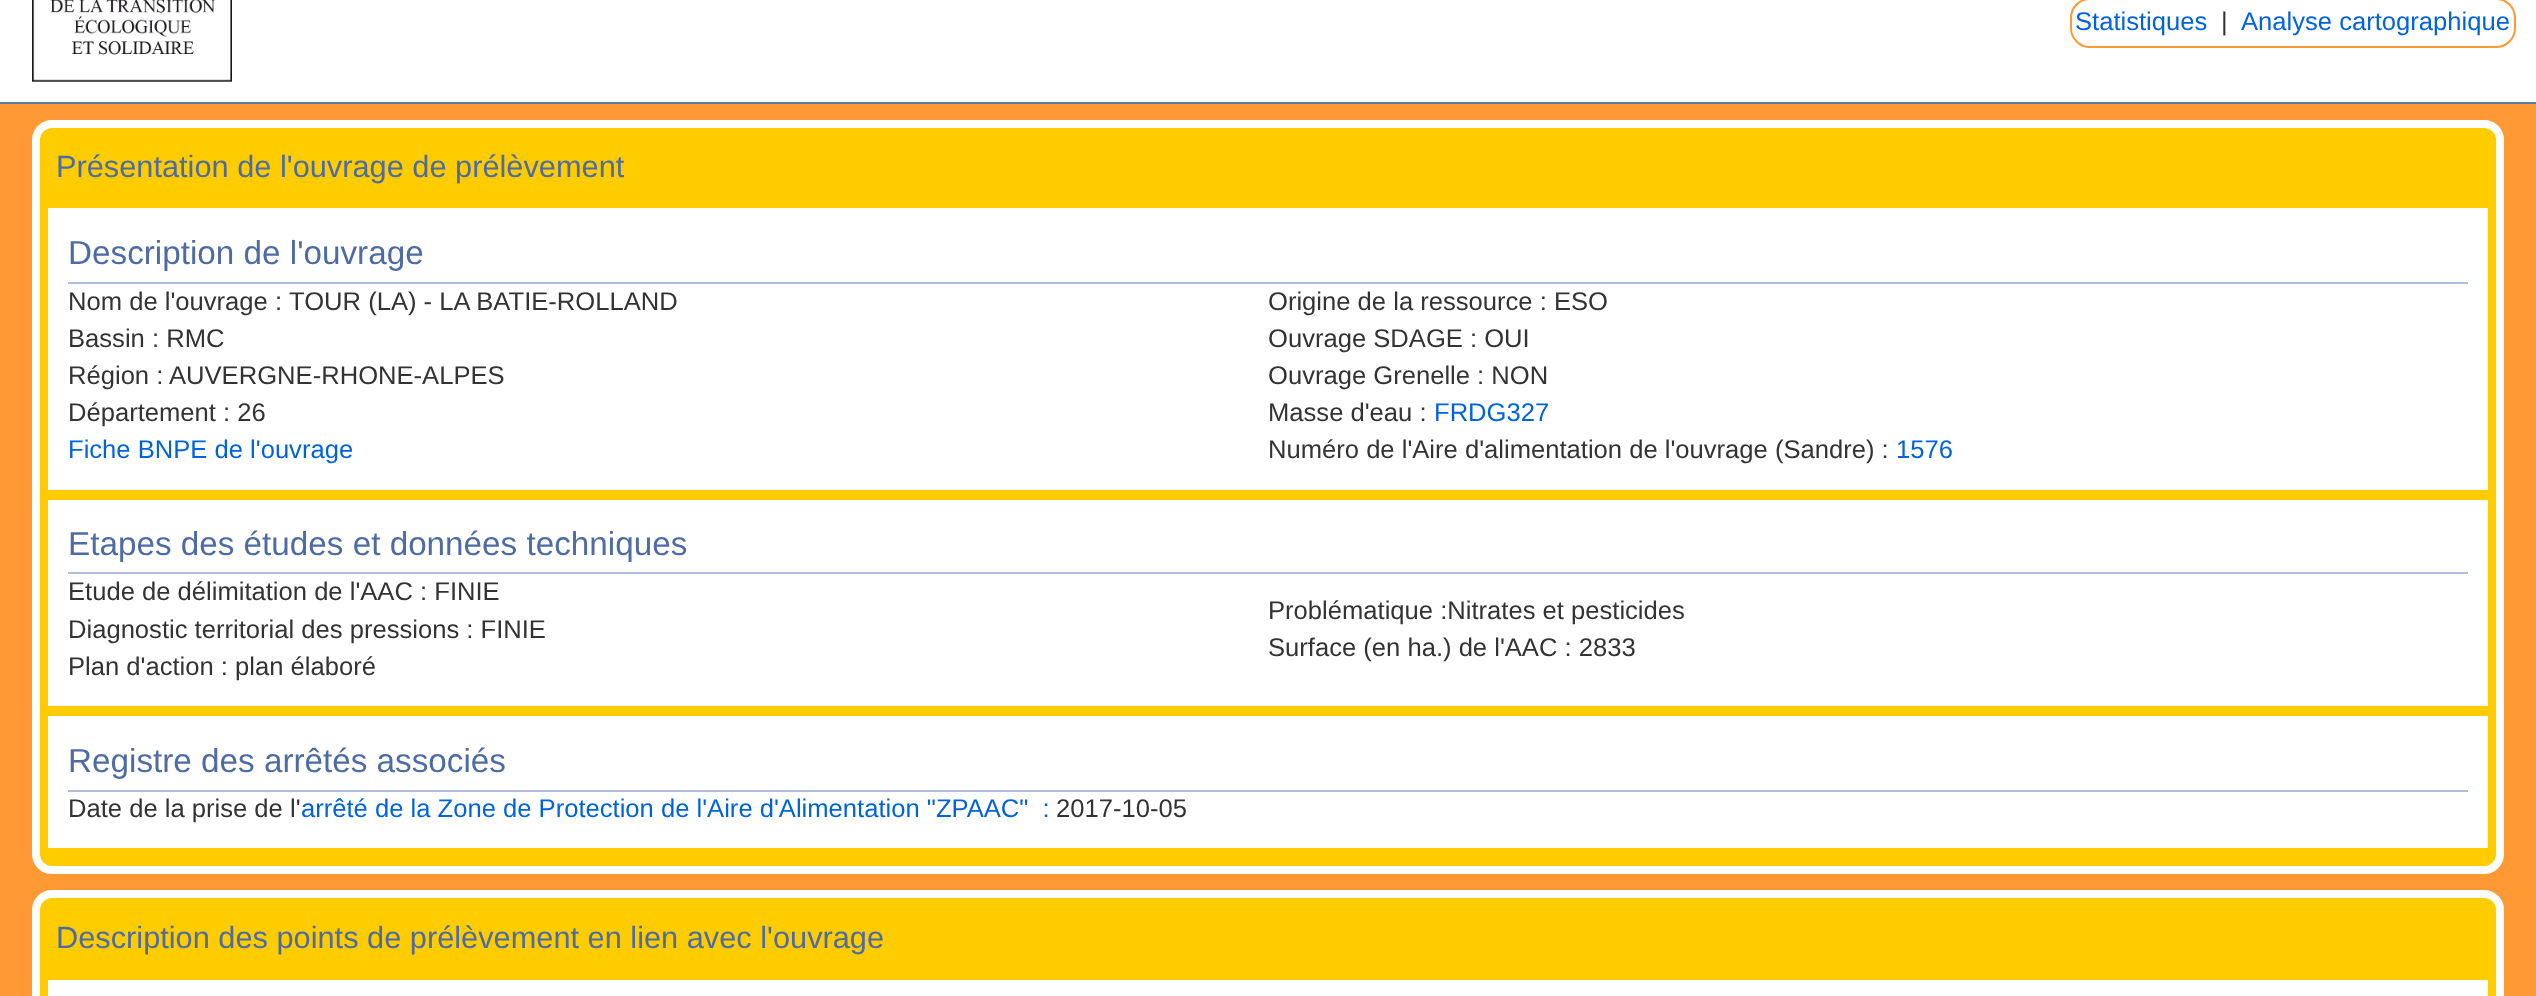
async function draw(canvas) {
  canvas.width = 2536
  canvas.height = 996
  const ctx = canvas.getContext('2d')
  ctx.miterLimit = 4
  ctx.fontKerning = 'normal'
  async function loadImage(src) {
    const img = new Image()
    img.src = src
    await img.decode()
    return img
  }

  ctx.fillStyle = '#f93'
  ctx.fillRect(0, 0, 2536, 996)
  ctx.fillStyle = '#fff'
  ctx.fillRect(0, 0, 2536, 102)
  ctx.fillStyle = '#597ca4'
  ctx.fillRect(0, 102, 2536, 2)
  ctx.drawImage(await loadImage('image0.png'), 32, 0, 200, 82)
  ctx.beginPath()
  ctx.roundRect(2071, -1, 444, 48, 19)
  ctx.strokeStyle = '#f93'
  ctx.lineWidth = 2
  ctx.stroke()
  ctx.font = '25.6px Liberation Sans'
  ctx.fillStyle = '#0063dc'
  ctx.fillText('Statistiques', 2075, 30)
  ctx.fillStyle = '#333'
  ctx.fillText('|', 2221, 30)
  ctx.fillStyle = '#0063dc'
  ctx.fillText('Analyse cartographique', 2241, 30)
  ctx.fillStyle = '#fc0'
  ctx.beginPath()
  ctx.roundRect(36, 124, 2464, 746, 16)
  ctx.fill()
  ctx.strokeStyle = '#fff'
  ctx.lineWidth = 8
  ctx.stroke()
  ctx.font = '30.75px Liberation Sans'
  ctx.fillStyle = '#4e6ca3'
  ctx.fillText('Présentation de l\'ouvrage de prélèvement', 56, 177)
  ctx.fillStyle = '#fff'
  ctx.fillRect(48, 208, 2440, 282)
  ctx.fillStyle = '#b0bed9'
  ctx.fillRect(68, 282, 2400, 2)
  ctx.font = '33.25px Liberation Sans'
  ctx.fillStyle = '#4e6ca3'
  ctx.fillText('Description de l\'ouvrage', 68, 264)
  ctx.font = '25.6px Liberation Sans'
  ctx.fillStyle = '#333'
  ctx.fillText('Nom de l\'ouvrage :', 68, 310)
  ctx.fillText('TOUR (LA) - LA BATIE-ROLLAND', 289, 310)
  ctx.fillText('Bassin : RMC', 68, 347)
  ctx.fillText('Région :', 68, 384)
  ctx.fillText('AUVERGNE-RHONE-ALPES', 169, 384)
  ctx.fillText('Département : 26', 68, 421)
  ctx.fillStyle = '#0063dc'
  ctx.fillText('Fiche BNPE de l\'ouvrage', 68, 458)
  ctx.fillStyle = '#333'
  ctx.fillText('Origine de la ressource : ESO', 1268, 310)
  ctx.fillText('Ouvrage SDAGE : OUI', 1268, 347)
  ctx.fillText('Ouvrage Grenelle : NON', 1268, 384)
  ctx.fillText('Masse d\'eau :', 1268, 421)
  ctx.fillStyle = '#0063dc'
  ctx.fillText('FRDG327', 1434, 421)
  ctx.fillStyle = '#333'
  ctx.fillText('Numéro de l\'Aire d\'alimentation de l\'ouvrage (Sandre) :', 1268, 458)
  ctx.fillStyle = '#0063dc'
  ctx.fillText('1576', 1896, 458)
  ctx.fillStyle = '#fff'
  ctx.fillRect(48, 500, 2440, 206)
  ctx.fillStyle = '#b0bed9'
  ctx.fillRect(68, 572, 2400, 2)
  ctx.font = '33.25px Liberation Sans'
  ctx.fillStyle = '#4e6ca3'
  ctx.fillText('Etapes des études et données techniques', 68, 555)
  ctx.font = '25.6px Liberation Sans'
  ctx.fillStyle = '#333'
  ctx.fillText('Etude de délimitation de l\'AAC : FINIE', 68, 600)
  ctx.fillText('Diagnostic territorial des pressions : FINIE', 68, 638)
  ctx.fillText('Plan d\'action : plan élaboré', 68, 675)
  ctx.fillText('Problématique :Nitrates et pesticides', 1268, 619)
  ctx.fillText('Surface (en ha.) de l\'AAC : 2833', 1268, 656)
  ctx.fillStyle = '#fff'
  ctx.fillRect(48, 716, 2440, 132)
  ctx.fillStyle = '#b0bed9'
  ctx.fillRect(68, 790, 2400, 2)
  ctx.font = '33.25px Liberation Sans'
  ctx.fillStyle = '#4e6ca3'
  ctx.fillText('Registre des arrêtés associés', 68, 772)
  ctx.font = '25.6px Liberation Sans'
  ctx.fillStyle = '#333'
  ctx.fillText('Date de la prise de l\'', 68, 817)
  ctx.fillStyle = '#0063dc'
  ctx.fillText('arrêté de la Zone de Protection de l\'Aire d\'Alimentation "ZPAAC"  :', 301, 817)
  ctx.fillStyle = '#333'
  ctx.fillText('2017-10-05', 1056, 817)
  ctx.fillStyle = '#fc0'
  ctx.beginPath()
  ctx.roundRect(36, 894, 2464, 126, 16)
  ctx.fill()
  ctx.stroke()
  ctx.font = '30.75px Liberation Sans'
  ctx.fillStyle = '#4e6ca3'
  ctx.fillText('Description des points de prélèvement en lien avec l\'ouvrage', 56, 948)
  ctx.fillStyle = '#fff'
  ctx.fillRect(48, 980, 2440, 16)
}

draw(document.querySelector('canvas'))
